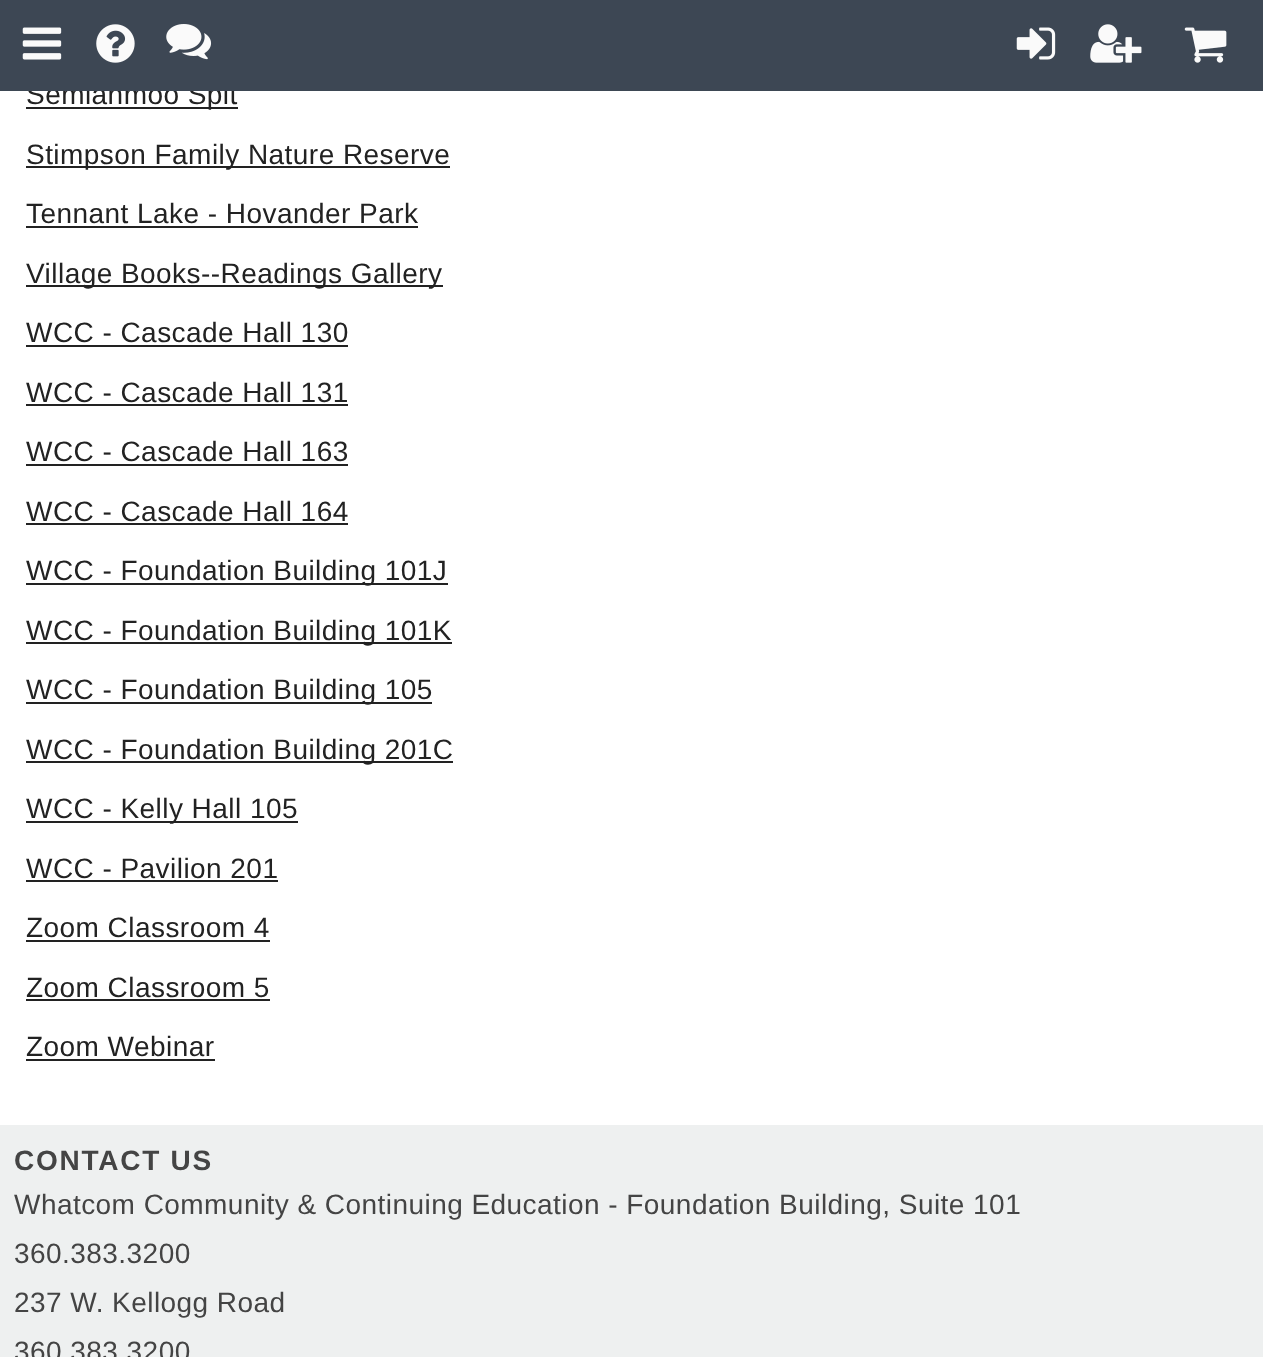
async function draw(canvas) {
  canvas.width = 1263
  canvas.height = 1357
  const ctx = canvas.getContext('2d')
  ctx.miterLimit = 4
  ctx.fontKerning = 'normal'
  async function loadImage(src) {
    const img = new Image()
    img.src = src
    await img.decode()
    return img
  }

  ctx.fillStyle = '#fff'
  ctx.fillRect(0, 0, 1263, 1357)
  ctx.fillStyle = '#222'
  ctx.fillRect(26, 107, 212, 2)
  ctx.letterSpacing = '0.45px'
  ctx.font = '28px Liberation Sans'
  ctx.fillText('Semiahmoo Spit', 26, 104)
  ctx.fillStyle = '#3d4754'
  ctx.fillRect(0, 0, 1263, 91)
  ctx.drawImage(await loadImage('image0.png'), 22, 27, 40, 33)
  ctx.drawImage(await loadImage('image1.png'), 96, 24, 39, 39)
  ctx.drawImage(await loadImage('image2.png'), 166, 24, 46, 36)
  ctx.drawImage(await loadImage('image3.png'), 1016, 27, 40, 33)
  ctx.drawImage(await loadImage('image4.png'), 1090, 24, 52, 39)
  ctx.drawImage(await loadImage('image5.png'), 1184, 27, 43, 36)
  ctx.fillStyle = '#222'
  ctx.fillRect(26, 166, 424, 2)
  ctx.fillText('Stimpson Family Nature Reserve', 26, 164)
  ctx.fillText('Tennant Lake - Hovander Park', 26, 223)
  ctx.fillRect(26, 226, 392, 2)
  ctx.fillRect(26, 285, 417, 2)
  ctx.fillText('Village Books--Readings Gallery', 26, 283)
  ctx.fillText('WCC - Cascade Hall 130', 26, 342)
  ctx.fillRect(26, 345, 322, 2)
  ctx.fillText('WCC - Cascade Hall 131', 26, 402)
  ctx.fillRect(26, 404, 322, 2)
  ctx.fillText('WCC - Cascade Hall 163', 26, 461)
  ctx.fillRect(26, 464, 322, 2)
  ctx.fillText('WCC - Cascade Hall 164', 26, 521)
  ctx.fillRect(26, 523, 322, 2)
  ctx.fillRect(26, 583, 422, 2)
  ctx.fillText('WCC - Foundation Building 101J', 26, 580)
  ctx.fillRect(26, 642, 426, 2)
  ctx.fillText('WCC - Foundation Building 101K', 26, 640)
  ctx.fillRect(26, 702, 406, 2)
  ctx.fillText('WCC - Foundation Building 105', 26, 699)
  ctx.fillRect(26, 761, 427, 2)
  ctx.fillText('WCC - Foundation Building 201C', 26, 759)
  ctx.fillRect(26, 821, 272, 2)
  ctx.fillText('WCC - Kelly Hall 105', 26, 818)
  ctx.fillText('WCC - Pavilion 201', 26, 878)
  ctx.fillRect(26, 880, 252, 2)
  ctx.fillText('Zoom Classroom 4', 26, 937)
  ctx.fillRect(26, 940, 244, 2)
  ctx.fillText('Zoom Classroom 5', 26, 997)
  ctx.fillRect(26, 999, 244, 2)
  ctx.fillText('Zoom Webinar', 26, 1056)
  ctx.fillRect(26, 1059, 189, 2)
  ctx.fillStyle = '#eef0f0'
  ctx.fillRect(0, 1125, 1263, 232)
  ctx.letterSpacing = '1.75px'
  ctx.font = 'bold 28px Liberation Sans'
  ctx.fillStyle = '#444'
  ctx.fillText('CONTACT US', 14, 1170)
  ctx.letterSpacing = '0.45px'
  ctx.font = '28px Liberation Sans'
  ctx.fillText('Whatcom Community & Continuing Education - Foundation Building, Suite 101', 14, 1214)
  ctx.fillText('360.383.3200', 14, 1263)
  ctx.fillText('237 W. Kellogg Road', 14, 1312)
  ctx.fillText('360.383.3200', 14, 1361)
}

draw(document.querySelector('canvas'))
